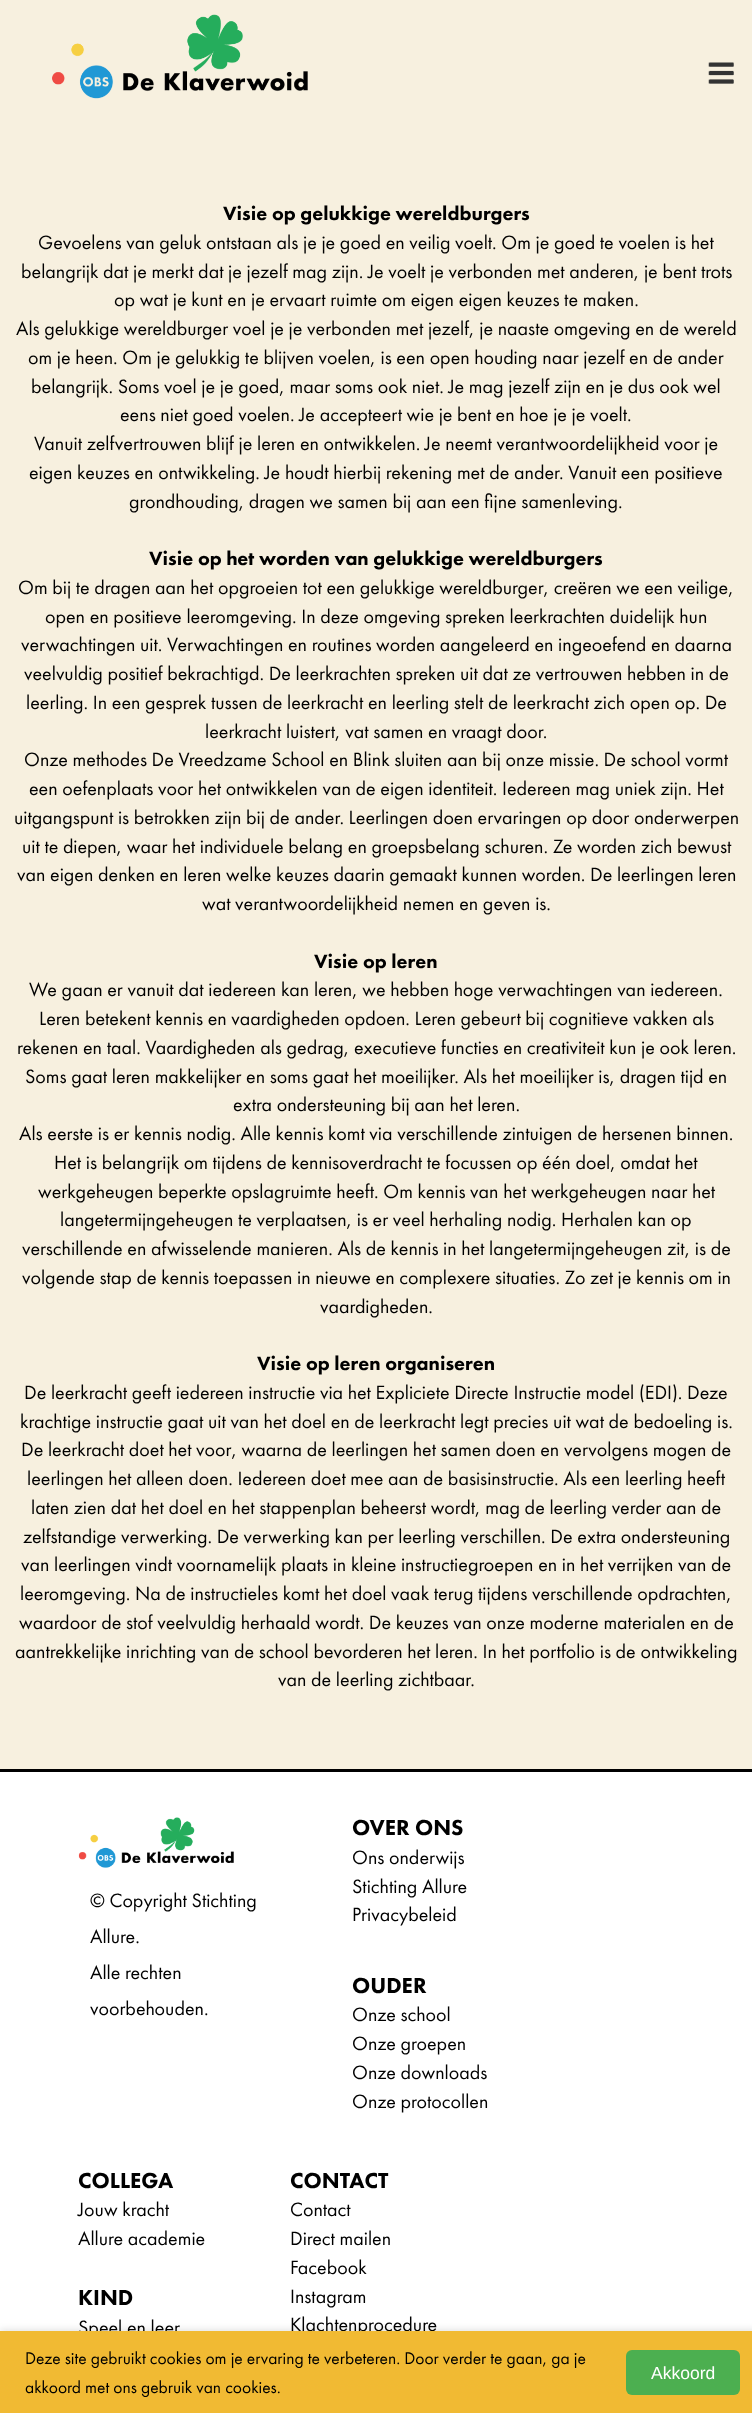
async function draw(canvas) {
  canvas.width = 752
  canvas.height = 2413
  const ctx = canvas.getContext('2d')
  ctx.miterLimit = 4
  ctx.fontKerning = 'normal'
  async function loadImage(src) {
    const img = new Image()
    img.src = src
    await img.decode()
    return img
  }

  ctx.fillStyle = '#f7f0df'
  ctx.fillRect(0, 0, 752, 2413)
  ctx.drawImage(await loadImage('image0.png'), 52, 14, 256, 85)
  ctx.drawImage(await loadImage('image1.png'), 708, 62, 26, 22)
  ctx.font = '900 20px Futura PT'
  ctx.fillStyle = '#000'
  ctx.fillText('Visie op gelukkige wereldburgers', 223, 220)
  ctx.font = '20px Futura PT'
  ctx.fillText('Gevoelens van geluk ontstaan als je je goed en veilig voelt. Om je goed te voelen is het', 38, 249)
  ctx.fillText('belangrijk dat je merkt dat je jezelf mag zijn. Je voelt je verbonden met anderen, je bent trots', 21, 278)
  ctx.fillText('op wat je kunt en je ervaart ruimte om eigen eigen keuzes te maken.', 114, 306)
  ctx.fillText('Als gelukkige wereldburger voel je je verbonden met jezelf, je naaste omgeving en de wereld', 16, 335)
  ctx.fillText('om je heen. Om je gelukkig te blijven voelen, is een open houding naar jezelf en de ander', 28, 364)
  ctx.fillText('belangrijk. Soms voel je je goed, maar soms ook niet. Je mag jezelf zijn en je dus ook wel', 31, 393)
  ctx.fillText('eens niet goed voelen. Je accepteert wie je bent en hoe je je voelt.', 120, 421)
  ctx.fillText('Vanuit zelfvertrouwen blijf je leren en ontwikkelen. Je neemt verantwoordelijkheid voor je', 34, 450)
  ctx.fillText('eigen keuzes en ontwikkeling. Je houdt hierbij rekening met de ander. Vanuit een positieve', 29, 479)
  ctx.fillText('grondhouding, dragen we samen bij aan een fijne samenleving.', 129, 508)
  ctx.font = '900 20px Futura PT'
  ctx.fillText('Visie op het worden van gelukkige wereldburgers', 149, 565)
  ctx.font = '20px Futura PT'
  ctx.fillText('Om bij te dragen aan het opgroeien tot een gelukkige wereldburger, creëren we een veilige,', 18, 594)
  ctx.fillText('open en positieve leeromgeving. In deze omgeving spreken leerkrachten duidelijk hun', 45, 623)
  ctx.fillText('verwachtingen uit. Verwachtingen en routines worden aangeleerd en ingeoefend en daarna', 21, 651)
  ctx.fillText('veelvuldig positief bekrachtigd. De leerkrachten spreken uit dat ze vertrouwen hebben in de', 24, 680)
  ctx.fillText('leerling. In een gesprek tussen de leerkracht en leerling stelt de leerkracht zich open op. De', 26, 709)
  ctx.fillText('leerkracht luistert, vat samen en vraagt door.', 205, 738)
  ctx.fillText('Onze methodes De Vreedzame School en Blink sluiten aan bij onze missie. De school vormt', 24, 766)
  ctx.fillText('een oefenplaats voor het ontwikkelen van de eigen identiteit. Iedereen mag uniek zijn. Het', 29, 795)
  ctx.fillText('uitgangspunt is betrokken zijn bij de ander. Leerlingen doen ervaringen op door onderwerpen', 14, 824)
  ctx.fillText('uit te diepen, waar het individuele belang en groepsbelang schuren. Ze worden zich bewust', 22, 853)
  ctx.fillText('van eigen denken en leren welke keuzes daarin gemaakt kunnen worden. De leerlingen leren', 17, 881)
  ctx.fillText('wat verantwoordelijkheid nemen en geven is.', 202, 910)
  ctx.font = '900 20px Futura PT'
  ctx.fillText('Visie op leren', 314, 968)
  ctx.font = '20px Futura PT'
  ctx.fillText('We gaan er vanuit dat iedereen kan leren, we hebben hoge verwachtingen van iedereen.', 29, 996)
  ctx.fillText('Leren betekent kennis en vaardigheden opdoen. Leren gebeurt bij cognitieve vakken als', 39, 1025)
  ctx.fillText('rekenen en taal. Vaardigheden als gedrag, executieve functies en creativiteit kun je ook leren.', 17, 1054)
  ctx.fillText('Soms gaat leren makkelijker en soms gaat het moeilijker. Als het moeilijker is, dragen tijd en', 25, 1083)
  ctx.fillText('extra ondersteuning bij aan het leren.', 233, 1111)
  ctx.fillText('Als eerste is er kennis nodig. Alle kennis komt via verschillende zintuigen de hersenen binnen.', 19, 1140)
  ctx.fillText('Het is belangrijk om tijdens de kennisoverdracht te focussen op één doel, omdat het', 54, 1169)
  ctx.fillText('werkgeheugen beperkte opslagruimte heeft. Om kennis van het werkgeheugen naar het', 38, 1198)
  ctx.fillText('langetermijngeheugen te verplaatsen, is er veel herhaling nodig. Herhalen kan op', 60, 1226)
  ctx.fillText('verschillende en afwisselende manieren. Als de kennis in het langetermijngeheugen zit, is de', 22, 1255)
  ctx.fillText('volgende stap de kennis toepassen in nieuwe en complexere situaties. Zo zet je kennis om in', 22, 1284)
  ctx.fillText('vaardigheden.', 320, 1313)
  ctx.font = '900 20px Futura PT'
  ctx.fillText('Visie op leren organiseren', 257, 1370)
  ctx.font = '20px Futura PT'
  ctx.fillText('De leerkracht geeft iedereen instructie via het Expliciete Directe Instructie model (EDI). Deze', 24, 1399)
  ctx.fillText('krachtige instructie gaat uit van het doel en de leerkracht legt precies uit wat de bedoeling is.', 20, 1428)
  ctx.fillText('De leerkracht doet het voor, waarna de leerlingen het samen doen en vervolgens mogen de', 21, 1456)
  ctx.fillText('leerlingen het alleen doen. Iedereen doet mee aan de basisinstructie. Als een leerling heeft', 27, 1485)
  ctx.fillText('laten zien dat het doel en het stappenplan beheerst wordt, mag de leerling verder aan de', 31, 1514)
  ctx.fillText('zelfstandige verwerking. De verwerking kan per leerling verschillen. De extra ondersteuning', 23, 1543)
  ctx.fillText('van leerlingen vindt voornamelijk plaats in kleine instructiegroepen en in het verrijken van de', 21, 1571)
  ctx.fillText('leeromgeving. Na de instructieles komt het doel vaak terug tijdens verschillende opdrachten,', 20, 1600)
  ctx.fillText('waardoor de stof veelvuldig herhaald wordt. De keuzes van onze moderne materialen en de', 19, 1629)
  ctx.fillText('aantrekkelijke inrichting van de school bevorderen het leren. In het portfolio is de ontwikkeling', 15, 1658)
  ctx.fillText('van de leerling zichtbaar.', 278, 1686)
  ctx.fillStyle = '#fff'
  ctx.fillRect(0, 1772, 752, 559)
  ctx.fillStyle = '#000'
  ctx.fillRect(0, 1769, 752, 3)
  ctx.font = '900 22.5px Futura PT'
  ctx.fillText('OVER ONS', 352, 1835)
  ctx.font = '20px Futura PT'
  ctx.fillText('Ons onderwijs', 352, 1864)
  ctx.fillText('Stichting Allure', 352, 1893)
  ctx.fillText('Privacybeleid', 352, 1921)
  ctx.drawImage(await loadImage('image2.png'), 78, 1817, 156, 51)
  ctx.fillText('© Copyright Stichting', 90, 1907)
  ctx.fillText('Allure.', 90, 1943)
  ctx.fillText('Alle rechten', 90, 1979)
  ctx.fillText('voorbehouden.', 90, 2015)
  ctx.font = '900 22.5px Futura PT'
  ctx.fillText('OUDER', 352, 1993)
  ctx.font = '20px Futura PT'
  ctx.fillText('Onze school', 352, 2021)
  ctx.fillText('Onze groepen', 352, 2050)
  ctx.fillText('Onze downloads', 352, 2079)
  ctx.fillText('Onze protocollen', 352, 2108)
  ctx.font = '900 22.5px Futura PT'
  ctx.fillText('COLLEGA', 78, 2188)
  ctx.font = '20px Futura PT'
  ctx.fillText('Jouw kracht', 78, 2216)
  ctx.fillText('Allure academie', 78, 2245)
  ctx.font = '900 22.5px Futura PT'
  ctx.fillText('KIND', 78, 2305)
  ctx.font = '20px Futura PT'
  ctx.fillText('Speel en leer', 78, 2334)
  ctx.font = '900 22.5px Futura PT'
  ctx.fillText('CONTACT', 290, 2188)
  ctx.font = '20px Futura PT'
  ctx.fillText('Contact', 290, 2216)
  ctx.fillText('Direct mailen', 290, 2245)
  ctx.fillText('Facebook', 290, 2274)
  ctx.fillText('Instagram', 290, 2303)
  ctx.fillText('Klachtenprocedure', 290, 2331)
  ctx.fillStyle = '#0000001a'
  ctx.filter = 'blur(3px)'
  ctx.beginPath()
  ctx.rect(0, 2329, 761, 82)
  ctx.fill()
  ctx.filter = 'none'
  ctx.fillStyle = '#f1ba33'
  ctx.fillRect(0, 2331, 752, 82)
  ctx.font = '17.5px Futura PT'
  ctx.fillStyle = '#000'
  ctx.fillText('Deze site gebruikt cookies om je ervaring te verbeteren. Door verder te gaan, ga je', 25, 2364)
  ctx.fillText('akkoord met ons gebruik van cookies.', 25, 2393)
  ctx.fillStyle = '#4caf50'
  ctx.beginPath()
  ctx.roundRect(626, 2350, 114, 45, 6)
  ctx.fill()
  ctx.font = '17.5px Liberation Sans'
  ctx.fillStyle = '#fff'
  ctx.fillText('Akkoord', 651, 2379)
}

draw(document.querySelector('canvas'))
